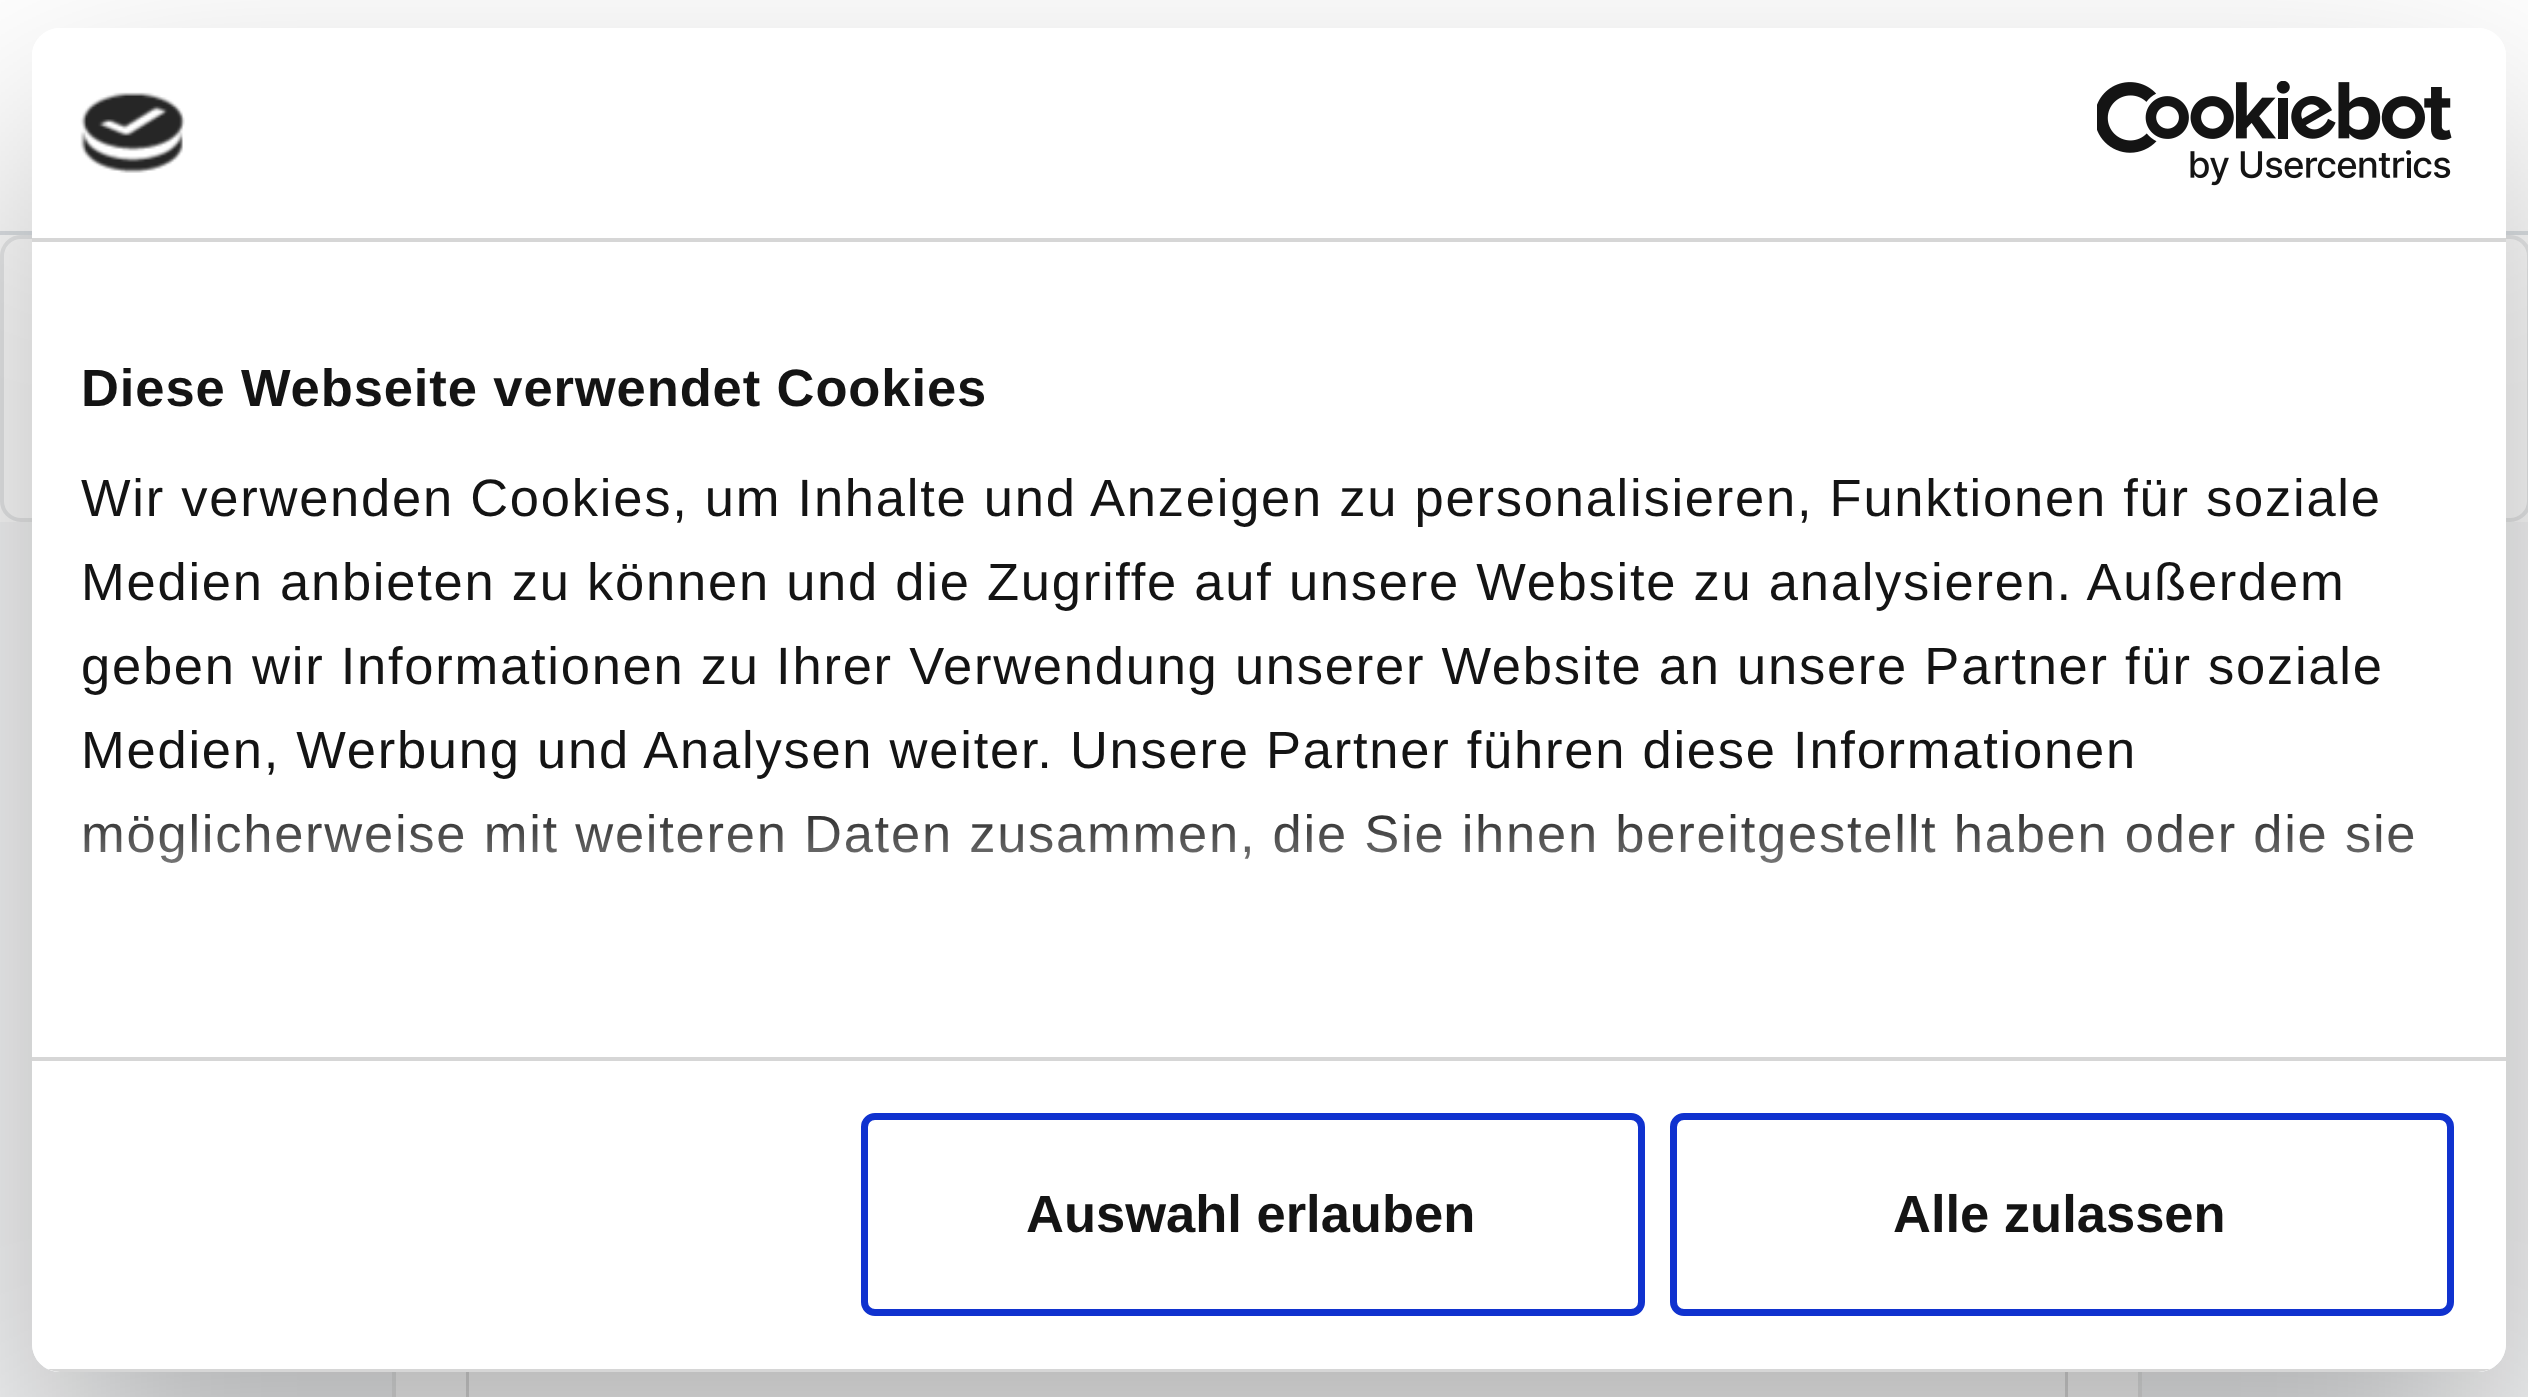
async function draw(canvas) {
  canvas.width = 2528
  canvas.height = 1397
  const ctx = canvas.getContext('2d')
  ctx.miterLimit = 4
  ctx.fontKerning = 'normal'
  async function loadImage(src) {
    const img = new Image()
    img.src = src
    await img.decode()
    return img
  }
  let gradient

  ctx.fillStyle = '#fff'
  ctx.fillRect(0, 0, 2528, 1397)
  ctx.fillStyle = '#dee2e6'
  ctx.fillRect(0, 231, 2528, 4)
  ctx.beginPath()
  ctx.roundRect(2, 237, 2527, 283, 19)
  ctx.strokeStyle = '#eaebec'
  ctx.lineWidth = 4
  ctx.stroke()
  ctx.fillStyle = '#f8f9fa'
  ctx.fillRect(0, 522, 2528, 875)
  ctx.fillStyle = '#fff'
  ctx.fillRect(392, 1372, 1750, 25)
  ctx.strokeStyle = '#51585e1f'
  ctx.strokeRect(394, 664, 1746, 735)
  ctx.fillStyle = '#dfdfdf'
  ctx.beginPath()
  ctx.moveTo(2068, 1334)
  ctx.lineTo(2068, 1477)
  ctx.lineTo(2065, 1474)
  ctx.lineTo(2065, 1334)
  ctx.closePath()
  ctx.fill()
  ctx.beginPath()
  ctx.moveTo(466, 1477)
  ctx.lineTo(466, 1334)
  ctx.lineTo(469, 1334)
  ctx.lineTo(469, 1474)
  ctx.closePath()
  ctx.fill()
  ctx.save()
  ctx.beginPath()
  ctx.moveTo(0, 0)
  ctx.lineTo(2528, 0)
  ctx.lineTo(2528, 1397)
  ctx.lineTo(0, 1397)
  ctx.closePath()
  ctx.moveTo(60, 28)
  ctx.lineTo(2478, 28)
  ctx.bezierCurveTo(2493.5, 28, 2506, 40.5, 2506, 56)
  ctx.lineTo(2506, 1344)
  ctx.bezierCurveTo(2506, 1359.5, 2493.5, 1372, 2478, 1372)
  ctx.lineTo(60, 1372)
  ctx.bezierCurveTo(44.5, 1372, 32, 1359.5, 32, 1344)
  ctx.lineTo(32, 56)
  ctx.bezierCurveTo(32, 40.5, 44.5, 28, 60, 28)
  ctx.closePath()
  ctx.clip('evenodd')
  ctx.fillStyle = '#0000004d'
  ctx.filter = 'blur(119px)'
  ctx.beginPath()
  ctx.roundRect(32, 140, 2474, 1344, 28)
  ctx.fill()
  ctx.filter = 'none'
  ctx.restore()
  ctx.fillStyle = '#fff'
  ctx.beginPath()
  ctx.roundRect(32, 28, 2474, 1344, 28)
  ctx.fill()
  ctx.fillStyle = '#d6d6d6'
  ctx.fillRect(32, 238, 2474, 4)
  ctx.drawImage(await loadImage('image0.png'), 80, 92, 105, 81)
  ctx.drawImage(await loadImage('image1.png'), 2097, 81, 355, 105)
  ctx.fillRect(32, 1057, 2474, 4)
  ctx.letterSpacing = '0.9px'
  ctx.font = 'bold 52.5px Liberation Sans'
  ctx.fillStyle = '#141414'
  ctx.fillText('Diese Webseite verwendet Cookies', 81, 406)
  ctx.letterSpacing = '1.75px'
  ctx.font = '52.5px Liberation Sans'
  ctx.fillText('Wir verwenden Cookies, um Inhalte und Anzeigen zu personalisieren, Funktionen für soziale', 81, 516)
  ctx.fillText('Medien anbieten zu können und die Zugriffe auf unsere Website zu analysieren. Außerdem', 81, 600)
  ctx.fillText('geben wir Informationen zu Ihrer Verwendung unserer Website an unsere Partner für soziale', 81, 684)
  ctx.fillText('Medien, Werbung und Analysen weiter. Unsere Partner führen diese Informationen', 81, 768)
  ctx.fillText('möglicherweise mit weiteren Daten zusammen, die Sie ihnen bereitgestellt haben oder die sie', 81, 852)
  gradient = ctx.createLinearGradient(1244, 1057, 1244, 795)
  gradient.addColorStop(0, '#fff')
  gradient.addColorStop(0.5, '#ffffffcc')
  gradient.addColorStop(1, '#ffffff00')
  ctx.fillStyle = gradient
  ctx.fillRect(84, 814, 2329, 49)
  ctx.save()
  ctx.beginPath()
  ctx.roundRect(32, 28, 2474, 1344, 28)
  ctx.clip()
  ctx.fillStyle = '#d6d6d6'
  ctx.fillRect(47, 1369, 2444, 3)
  ctx.restore()
  ctx.beginPath()
  ctx.roundRect(864.5, 1116.5, 777, 196, 10.5)
  ctx.strokeStyle = '#1032cf'
  ctx.lineWidth = 7
  ctx.stroke()
  ctx.letterSpacing = '0px'
  ctx.font = 'bold 52.5px Liberation Sans'
  ctx.fillStyle = '#141414'
  ctx.fillText('Auswahl erlauben', 1026, 1232)
  ctx.beginPath()
  ctx.roundRect(1673.5, 1116.5, 777, 196, 10.5)
  ctx.stroke()
  ctx.fillText('Alle zulassen', 1893, 1232)
}

draw(document.querySelector('canvas'))
